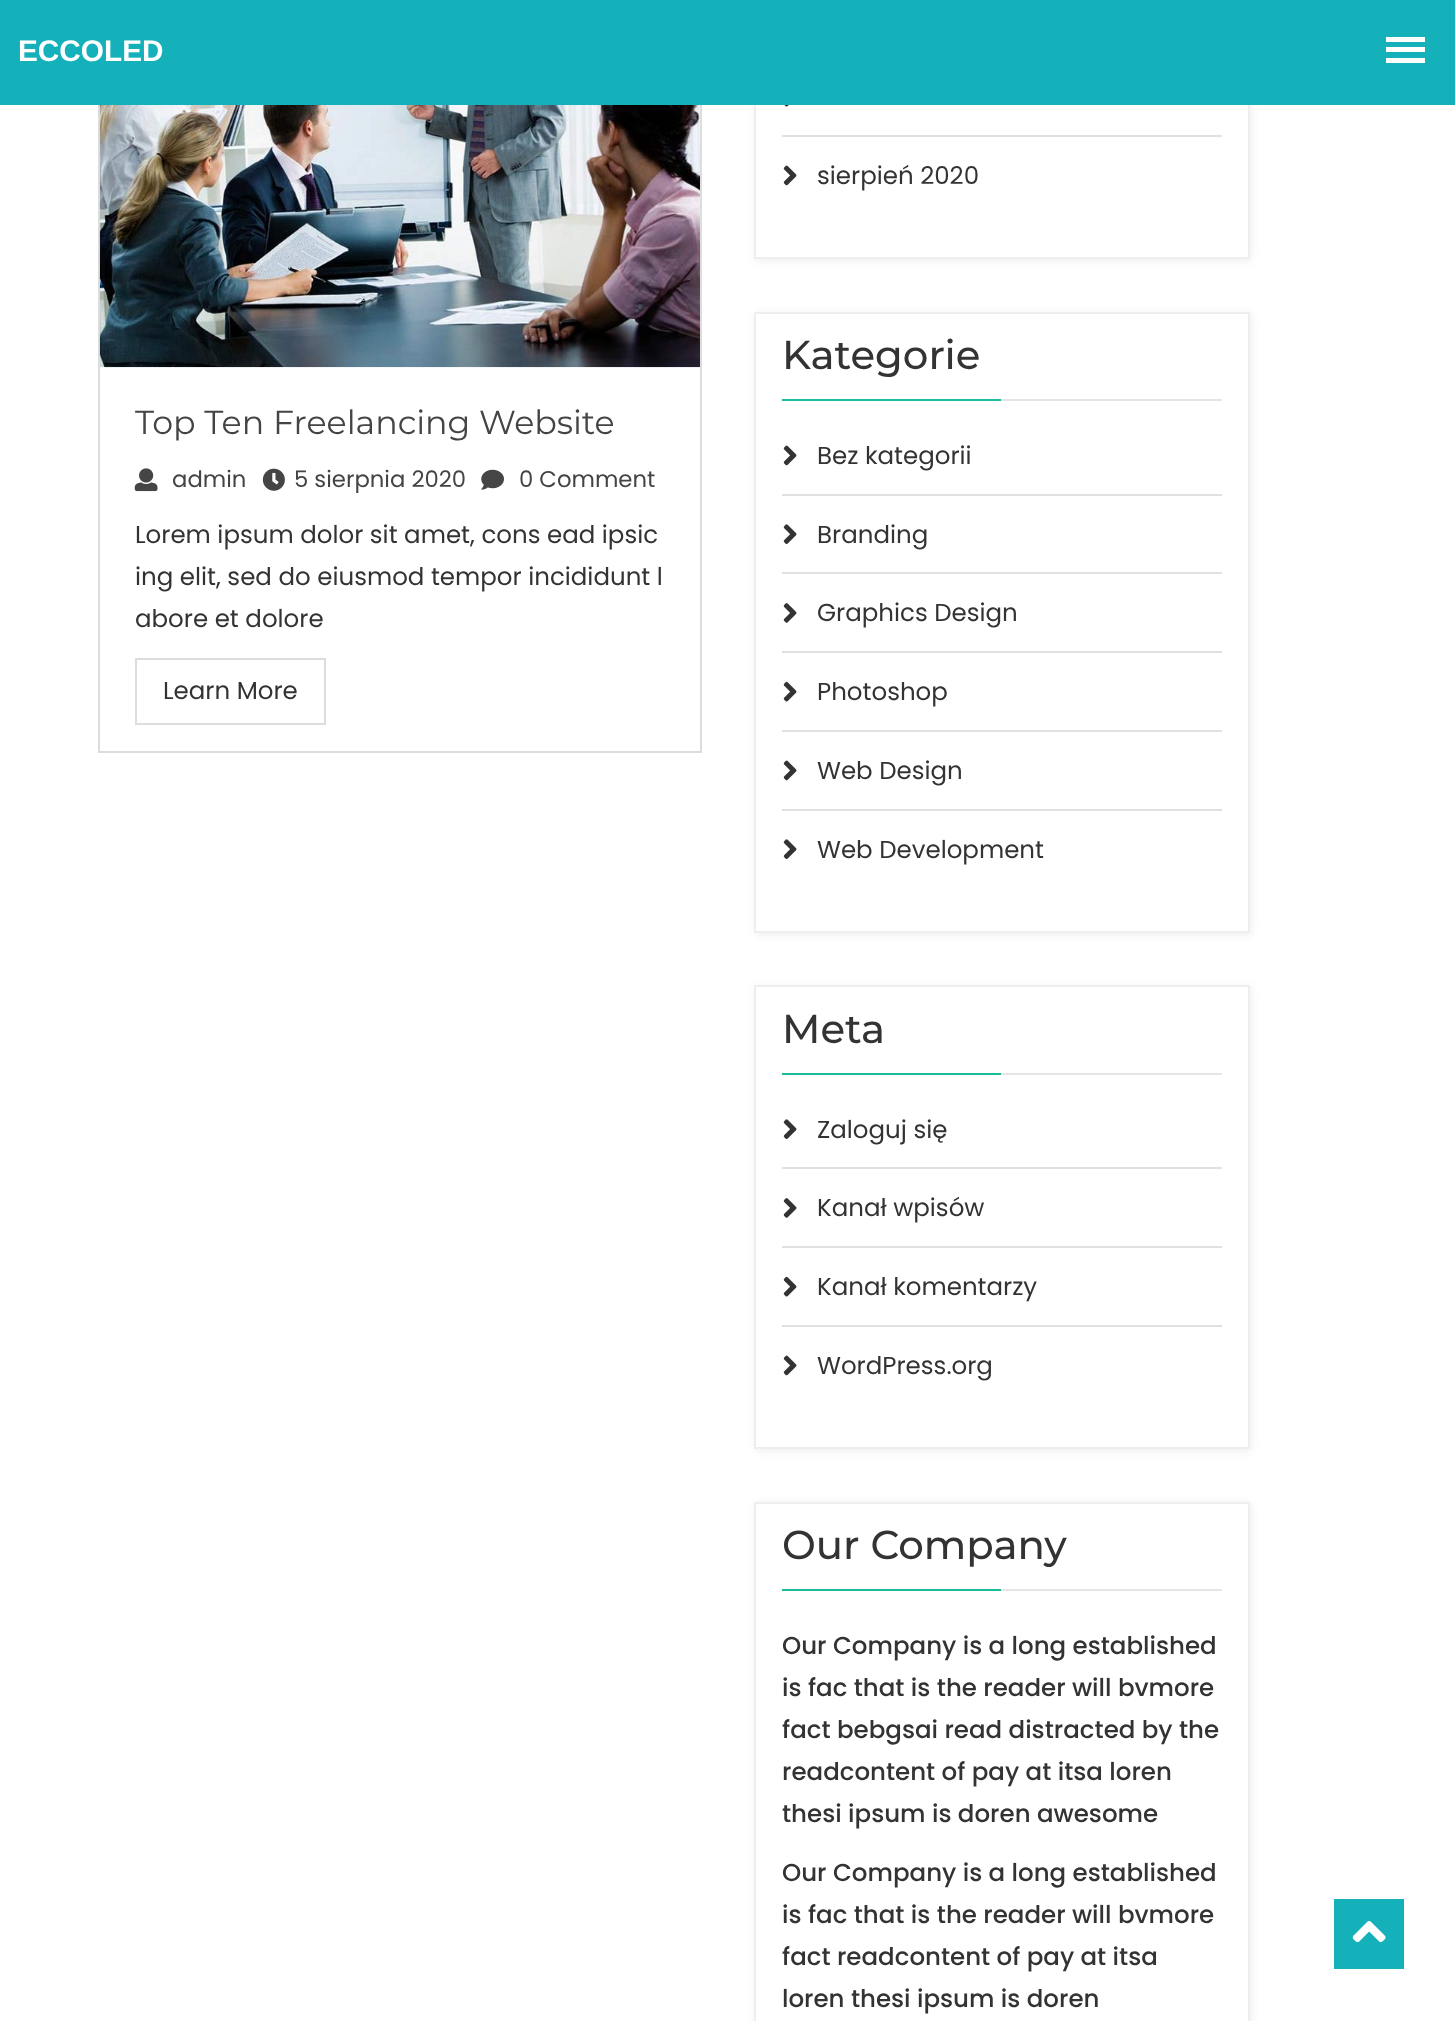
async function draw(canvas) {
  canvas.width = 1455
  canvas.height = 2021
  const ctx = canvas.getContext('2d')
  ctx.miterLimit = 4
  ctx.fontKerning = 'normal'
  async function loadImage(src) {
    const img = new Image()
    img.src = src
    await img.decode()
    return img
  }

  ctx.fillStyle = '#fff'
  ctx.fillRect(0, 0, 1455, 2021)
  ctx.strokeStyle = '#ddd'
  ctx.lineWidth = 2
  ctx.strokeRect(99, -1, 602, 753)
  ctx.fillStyle = '#eee'
  ctx.filter = 'blur(4.5px)'
  ctx.beginPath()
  ctx.rect(756, -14, 495, 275)
  ctx.fill()
  ctx.filter = 'none'
  ctx.fillStyle = '#fff'
  ctx.fillRect(756, 105, 492, 152)
  ctx.strokeStyle = '#eee'
  ctx.strokeRect(755, -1, 494, 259)
  ctx.fillStyle = '#14b1bb'
  ctx.fillRect(0, 0, 1455, 105)
  ctx.font = 'bold 29.75px Liberation Sans'
  ctx.fillStyle = '#fff'
  ctx.fillText('ECCOLED', 18, 61)
  ctx.fillRect(1386, 37, 39, 5)
  ctx.fillRect(1386, 47, 39, 5)
  ctx.fillRect(1386, 58, 39, 5)
  ctx.drawImage(await loadImage('image0.png'), 99, 105, 601, 263)
  ctx.font = '33.25px Montserrat'
  ctx.fillStyle = '#444'
  ctx.fillText('Top Ten Freelancing Website', 135, 434)
  ctx.drawImage(await loadImage('image1.png'), 134, 468, 24, 24)
  ctx.font = '22.75px Poppins'
  ctx.fillText('admin', 172, 487)
  ctx.drawImage(await loadImage('image2.png'), 262, 468, 23, 23)
  ctx.fillText('5 sierpnia 2020', 294, 487)
  ctx.drawImage(await loadImage('image3.png'), 481, 469, 23, 21)
  ctx.fillText('0 Comment', 519, 487)
  ctx.font = '24.5px Poppins'
  ctx.fillStyle = '#333'
  ctx.fillText('Lorem ipsum dolor sit amet, cons ead ipsic', 135, 543)
  ctx.fillText('ing elit, sed do eiusmod tempor incididunt l', 135, 585)
  ctx.fillText('abore et dolore', 135, 627)
  ctx.strokeStyle = '#ddd'
  ctx.strokeRect(136, 659, 189, 65)
  ctx.fillText('Learn More', 163, 699)
  ctx.fillStyle = '#e0e0e0'
  ctx.fillRect(782, 135, 440, 2)
  ctx.drawImage(await loadImage('image4.png'), 784, 105, 5, 2)
  ctx.drawImage(await loadImage('image5.png'), 783, 165, 14, 21)
  ctx.fillStyle = '#333'
  ctx.fillText('sierpień 2020', 817, 184)
  ctx.fillStyle = '#eee'
  ctx.filter = 'blur(4.5px)'
  ctx.beginPath()
  ctx.rect(756, 313, 495, 622)
  ctx.fill()
  ctx.filter = 'none'
  ctx.fillStyle = '#fff'
  ctx.beginPath()
  ctx.rect(755, 313, 494, 619)
  ctx.fill()
  ctx.strokeStyle = '#eee'
  ctx.stroke()
  ctx.fillStyle = '#e5e5e5'
  ctx.fillRect(1001, 399, 221, 2)
  ctx.font = '500 40.25px Montserrat'
  ctx.fillStyle = '#333'
  ctx.fillText('Kategorie', 782, 369)
  ctx.fillStyle = '#1bbc9b'
  ctx.fillRect(782, 399, 219, 2)
  ctx.fillStyle = '#e0e0e0'
  ctx.fillRect(782, 494, 440, 2)
  ctx.drawImage(await loadImage('image5.png'), 783, 445, 14, 21)
  ctx.font = '24.5px Poppins'
  ctx.fillStyle = '#333'
  ctx.fillText('Bez kategorii', 817, 464)
  ctx.fillStyle = '#e0e0e0'
  ctx.fillRect(782, 572, 440, 2)
  ctx.drawImage(await loadImage('image6.png'), 783, 524, 14, 20)
  ctx.fillStyle = '#333'
  ctx.fillText('Branding', 817, 543)
  ctx.fillStyle = '#e0e0e0'
  ctx.fillRect(782, 651, 440, 2)
  ctx.drawImage(await loadImage('image7.png'), 783, 603, 14, 20)
  ctx.fillStyle = '#333'
  ctx.fillText('Graphics Design', 817, 621)
  ctx.fillStyle = '#e0e0e0'
  ctx.fillRect(782, 730, 440, 2)
  ctx.drawImage(await loadImage('image8.png'), 783, 681, 14, 21)
  ctx.fillStyle = '#333'
  ctx.fillText('Photoshop', 817, 700)
  ctx.fillStyle = '#e0e0e0'
  ctx.fillRect(782, 809, 440, 2)
  ctx.drawImage(await loadImage('image5.png'), 783, 760, 14, 21)
  ctx.fillStyle = '#333'
  ctx.fillText('Web Design', 817, 779)
  ctx.drawImage(await loadImage('image6.png'), 783, 839, 14, 20)
  ctx.fillText('Web Development', 817, 858)
  ctx.fillStyle = '#eee'
  ctx.filter = 'blur(4.5px)'
  ctx.beginPath()
  ctx.rect(756, 987, 495, 464)
  ctx.fill()
  ctx.filter = 'none'
  ctx.fillStyle = '#fff'
  ctx.beginPath()
  ctx.rect(755, 986, 494, 462)
  ctx.fill()
  ctx.stroke()
  ctx.fillStyle = '#e5e5e5'
  ctx.fillRect(1001, 1073, 221, 2)
  ctx.font = '500 40.25px Montserrat'
  ctx.fillStyle = '#333'
  ctx.fillText('Meta', 782, 1043)
  ctx.fillStyle = '#1bbc9b'
  ctx.fillRect(782, 1073, 219, 2)
  ctx.fillStyle = '#e0e0e0'
  ctx.fillRect(782, 1167, 440, 2)
  ctx.drawImage(await loadImage('image6.png'), 783, 1119, 14, 20)
  ctx.font = '24.5px Poppins'
  ctx.fillStyle = '#333'
  ctx.fillText('Zaloguj się', 817, 1138)
  ctx.fillStyle = '#e0e0e0'
  ctx.fillRect(782, 1246, 440, 2)
  ctx.drawImage(await loadImage('image7.png'), 783, 1198, 14, 20)
  ctx.fillStyle = '#333'
  ctx.fillText('Kanał wpisów', 817, 1216)
  ctx.fillStyle = '#e0e0e0'
  ctx.fillRect(782, 1325, 440, 2)
  ctx.drawImage(await loadImage('image8.png'), 783, 1276, 14, 21)
  ctx.fillStyle = '#333'
  ctx.fillText('Kanał komentarzy', 817, 1295)
  ctx.drawImage(await loadImage('image5.png'), 783, 1355, 14, 21)
  ctx.fillText('WordPress.org', 817, 1374)
  ctx.fillStyle = '#eee'
  ctx.filter = 'blur(4.5px)'
  ctx.beginPath()
  ctx.rect(756, 1503, 495, 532)
  ctx.fill()
  ctx.filter = 'none'
  ctx.fillStyle = '#fff'
  ctx.beginPath()
  ctx.rect(755, 1503, 494, 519)
  ctx.fill()
  ctx.stroke()
  ctx.fillStyle = '#e5e5e5'
  ctx.fillRect(1001, 1589, 221, 2)
  ctx.font = '500 40.25px Montserrat'
  ctx.fillStyle = '#333'
  ctx.fillText('Our Company', 782, 1559)
  ctx.fillStyle = '#1bbc9b'
  ctx.fillRect(782, 1589, 219, 2)
  ctx.font = '500 24.5px Poppins'
  ctx.fillStyle = '#333'
  ctx.fillText('Our Company is a long established', 782, 1654)
  ctx.fillText('is fac that is the reader will bvmore', 782, 1696)
  ctx.fillText('fact bebgsai read distracted by the', 782, 1738)
  ctx.fillText('readcontent of pay at itsa loren', 782, 1780)
  ctx.fillText('thesi ipsum is doren awesome', 782, 1822)
  ctx.fillText('Our Company is a long established', 782, 1881)
  ctx.fillText('is fac that is the reader will bvmore', 782, 1923)
  ctx.fillText('fact readcontent of pay at itsa', 782, 1965)
  ctx.fillText('loren thesi ipsum is doren', 782, 2007)
  ctx.fillStyle = '#14b1bb'
  ctx.fillRect(1334, 1899, 70, 70)
  ctx.drawImage(await loadImage('image9.png'), 1352, 1921, 34, 22)
}

draw(document.querySelector('canvas'))
